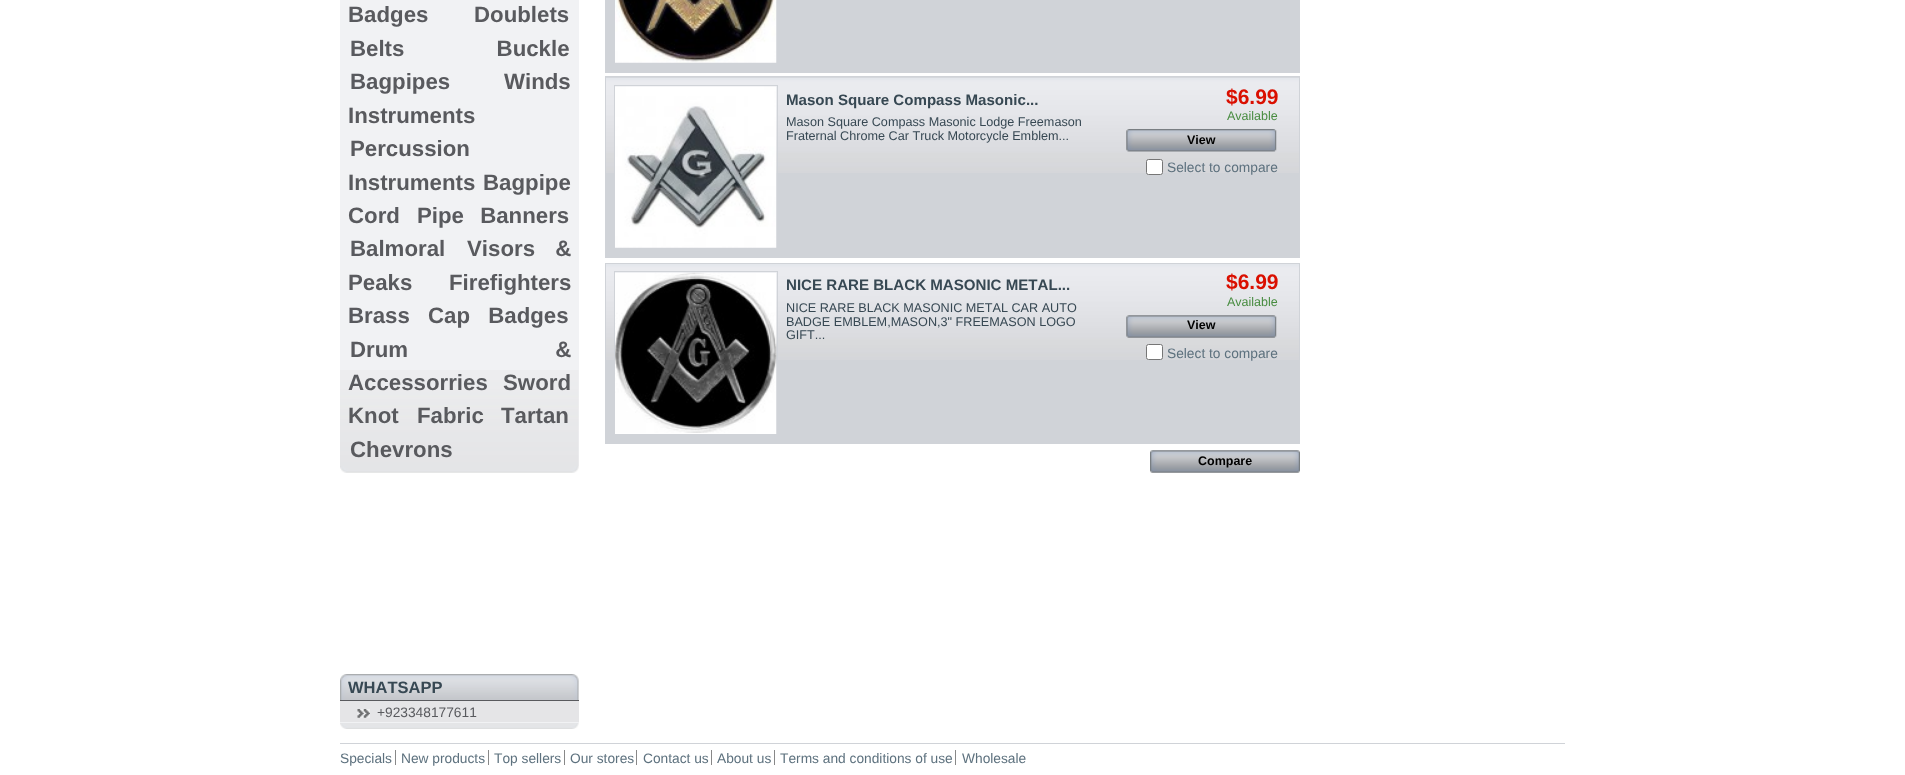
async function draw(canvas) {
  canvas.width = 1905
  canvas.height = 775
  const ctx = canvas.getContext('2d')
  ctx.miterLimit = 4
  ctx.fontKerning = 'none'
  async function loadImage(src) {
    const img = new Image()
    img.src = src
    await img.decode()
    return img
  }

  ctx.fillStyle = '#fff'
  ctx.fillRect(0, 0, 1905, 775)
  ctx.drawImage(await loadImage('image0.png'), 340, 466, 239, 7)
  ctx.fillStyle = '#f1f2f4'
  ctx.fillRect(340, 0, 239, 466)
  ctx.drawImage(await loadImage('image1.png'), 340, 370, 239, 96)
  ctx.font = 'bold 22.25px Liberation Sans'
  ctx.fillStyle = '#595a5e'
  ctx.fillText('Badges', 348, 22)
  ctx.fillText('Doublets', 474, 22)
  ctx.wordSpacing = '86px'
  ctx.fillText('Belts Buckle', 350, 56)
  ctx.wordSpacing = '0px'
  ctx.fillText('Bagpipes', 350, 89)
  ctx.fillText('Winds', 504, 89)
  ctx.fillText('Instruments', 348, 123)
  ctx.fillText('Percussion', 350, 156)
  ctx.fillText('Instruments', 348, 190)
  ctx.fillText('Bagpipe', 483, 190)
  ctx.fillText('Cord', 348, 223)
  ctx.wordSpacing = '10px'
  ctx.fillText('Pipe Banners', 417, 223)
  ctx.wordSpacing = '0px'
  ctx.fillText('Balmoral', 350, 256)
  ctx.wordSpacing = '14px'
  ctx.fillText('Visors &', 467, 256)
  ctx.wordSpacing = '0px'
  ctx.fillText('Peaks', 348, 290)
  ctx.fillText('Firefighters', 449, 290)
  ctx.wordSpacing = '12px'
  ctx.fillText('Brass Cap Badges', 348, 323)
  ctx.wordSpacing = '141px'
  ctx.fillText('Drum &', 350, 357)
  ctx.wordSpacing = '0px'
  ctx.fillText('Accessorries', 348, 390)
  ctx.fillText('Sword', 503, 390)
  ctx.fillText('Knot', 348, 423)
  ctx.wordSpacing = '11px'
  ctx.fillText('Fabric Tartan', 417, 423)
  ctx.wordSpacing = '0px'
  ctx.fillText('Chevrons', 350, 457)
  ctx.drawImage(await loadImage('image2.png'), 340, 723, 239, 6)
  ctx.drawImage(await loadImage('image3.png'), 340, 674, 239, 26)
  ctx.fillRect(340, 700, 239, 1)
  ctx.font = 'bold 16.5px Liberation Sans'
  ctx.fillStyle = '#374853'
  ctx.fillText('WHATSAPP', 348, 693)
  ctx.fillStyle = '#f1f2f4'
  ctx.fillRect(340, 722, 239, 1)
  ctx.fillStyle = '#e5e5e7'
  ctx.fillRect(340, 701, 239, 21)
  ctx.drawImage(await loadImage('image4.png'), 357, 709, 13, 9)
  ctx.font = '13.75px Liberation Sans'
  ctx.fillStyle = '#595a5e'
  ctx.fillText('+923348177611', 377, 717)
  ctx.fillStyle = '#d0d3d8'
  ctx.fillRect(605, 0, 695, 73)
  ctx.drawImage(await loadImage('image5.png'), 615, 0, 162, 63)
  ctx.fillRect(606, 77, 693, 180)
  ctx.drawImage(await loadImage('image6.png'), 606, 77, 693, 96)
  ctx.strokeStyle = '#d0d3d8'
  ctx.strokeRect(605.5, 76.5, 694, 181)
  ctx.strokeRect(614.5, 85.5, 163, 163)
  ctx.drawImage(await loadImage('image7.png'), 615, 86, 162, 162)
  ctx.font = 'bold 15.1px Liberation Sans'
  ctx.fillStyle = '#374853'
  ctx.fillText('Mason Square Compass Masonic...', 786, 105)
  ctx.font = '12.65px Liberation Sans'
  ctx.fillText('Mason Square Compass Masonic Lodge Freemason', 786, 126)
  ctx.fillText('Fraternal Chrome Car Truck Motorcycle Emblem...', 786, 140)
  ctx.font = 'bold 21px Liberation Sans'
  ctx.fillStyle = '#da0f00'
  ctx.fillText('$6.99', 1226, 104)
  ctx.font = '12.5px Liberation Sans'
  ctx.fillStyle = '#488c40'
  ctx.fillText('Available', 1227, 120)
  ctx.drawImage(await loadImage('image8.png'), 1126, 129, 151, 23)
  ctx.font = 'bold 12.5px Liberation Sans'
  ctx.fillStyle = '#000'
  ctx.fillText('View', 1187, 144)
  ctx.fillStyle = '#fff'
  ctx.beginPath()
  ctx.roundRect(1146.5, 159.5, 16, 15, 2)
  ctx.fill()
  ctx.strokeStyle = '#767676'
  ctx.stroke()
  ctx.font = '13.75px Liberation Sans'
  ctx.fillStyle = '#5d717e'
  ctx.fillText('Select to compare', 1167, 172)
  ctx.fillStyle = '#d0d3d8'
  ctx.fillRect(606, 360, 693, 83)
  ctx.drawImage(await loadImage('image9.png'), 606, 264, 693, 96)
  ctx.strokeStyle = '#d0d3d8'
  ctx.strokeRect(605.5, 263.5, 694, 180)
  ctx.strokeRect(614.5, 271.5, 163, 163)
  ctx.drawImage(await loadImage('image10.png'), 615, 272, 162, 162)
  ctx.font = 'bold 15.1px Liberation Sans'
  ctx.fillStyle = '#374853'
  ctx.fillText('NICE RARE BLACK MASONIC METAL...', 786, 290)
  ctx.font = '12.65px Liberation Sans'
  ctx.fillText('NICE RARE BLACK MASONIC METAL CAR AUTO', 786, 312)
  ctx.fillText('BADGE EMBLEM,MASON,3" FREEMASON LOGO', 786, 326)
  ctx.fillText('GIFT...', 786, 339)
  ctx.font = 'bold 21px Liberation Sans'
  ctx.fillStyle = '#da0f00'
  ctx.fillText('$6.99', 1226, 289)
  ctx.font = '12.5px Liberation Sans'
  ctx.fillStyle = '#488c40'
  ctx.fillText('Available', 1227, 306)
  ctx.drawImage(await loadImage('image11.png'), 1126, 315, 151, 23)
  ctx.font = 'bold 12.5px Liberation Sans'
  ctx.fillStyle = '#000'
  ctx.fillText('View', 1187, 329)
  ctx.fillStyle = '#fff'
  ctx.beginPath()
  ctx.roundRect(1146.5, 344.5, 16, 15, 2)
  ctx.fill()
  ctx.strokeStyle = '#767676'
  ctx.stroke()
  ctx.font = '13.75px Liberation Sans'
  ctx.fillStyle = '#5d717e'
  ctx.fillText('Select to compare', 1167, 358)
  ctx.fillStyle = '#efefef'
  ctx.fillRect(1150, 450, 150, 23)
  ctx.drawImage(await loadImage('image12.png'), 1150, 450, 150, 23)
  ctx.font = 'bold 12.5px Liberation Sans'
  ctx.fillStyle = '#000'
  ctx.fillText('Compare', 1198, 465)
  ctx.fillStyle = '#d0d3d8'
  ctx.fillRect(340, 743, 1225, 1)
  ctx.font = '13.75px Liberation Sans'
  ctx.fillStyle = '#5d717e'
  ctx.fillText('Specials', 340, 763)
  ctx.fillText('New products', 401, 763)
  ctx.fillStyle = '#888'
  ctx.fillRect(395, 750, 1, 15)
  ctx.fillStyle = '#5d717e'
  ctx.fillText('Top sellers', 494, 763)
  ctx.fillStyle = '#888'
  ctx.fillRect(488, 750, 1, 15)
  ctx.fillStyle = '#5d717e'
  ctx.fillText('Our stores', 570, 763)
  ctx.fillStyle = '#888'
  ctx.fillRect(564, 750, 1, 15)
  ctx.fillStyle = '#5d717e'
  ctx.fillText('Contact us', 643, 763)
  ctx.fillStyle = '#888'
  ctx.fillRect(636, 750, 1, 15)
  ctx.fillStyle = '#5d717e'
  ctx.fillText('About us', 717, 763)
  ctx.fillStyle = '#888'
  ctx.fillRect(711, 750, 1, 15)
  ctx.fillStyle = '#5d717e'
  ctx.fillText('Terms and conditions of use', 780, 763)
  ctx.fillStyle = '#888'
  ctx.fillRect(774, 750, 1, 15)
  ctx.fillStyle = '#5d717e'
  ctx.fillText('Wholesale', 962, 763)
  ctx.fillStyle = '#888'
  ctx.fillRect(955, 750, 1, 15)
}

draw(document.querySelector('canvas'))
